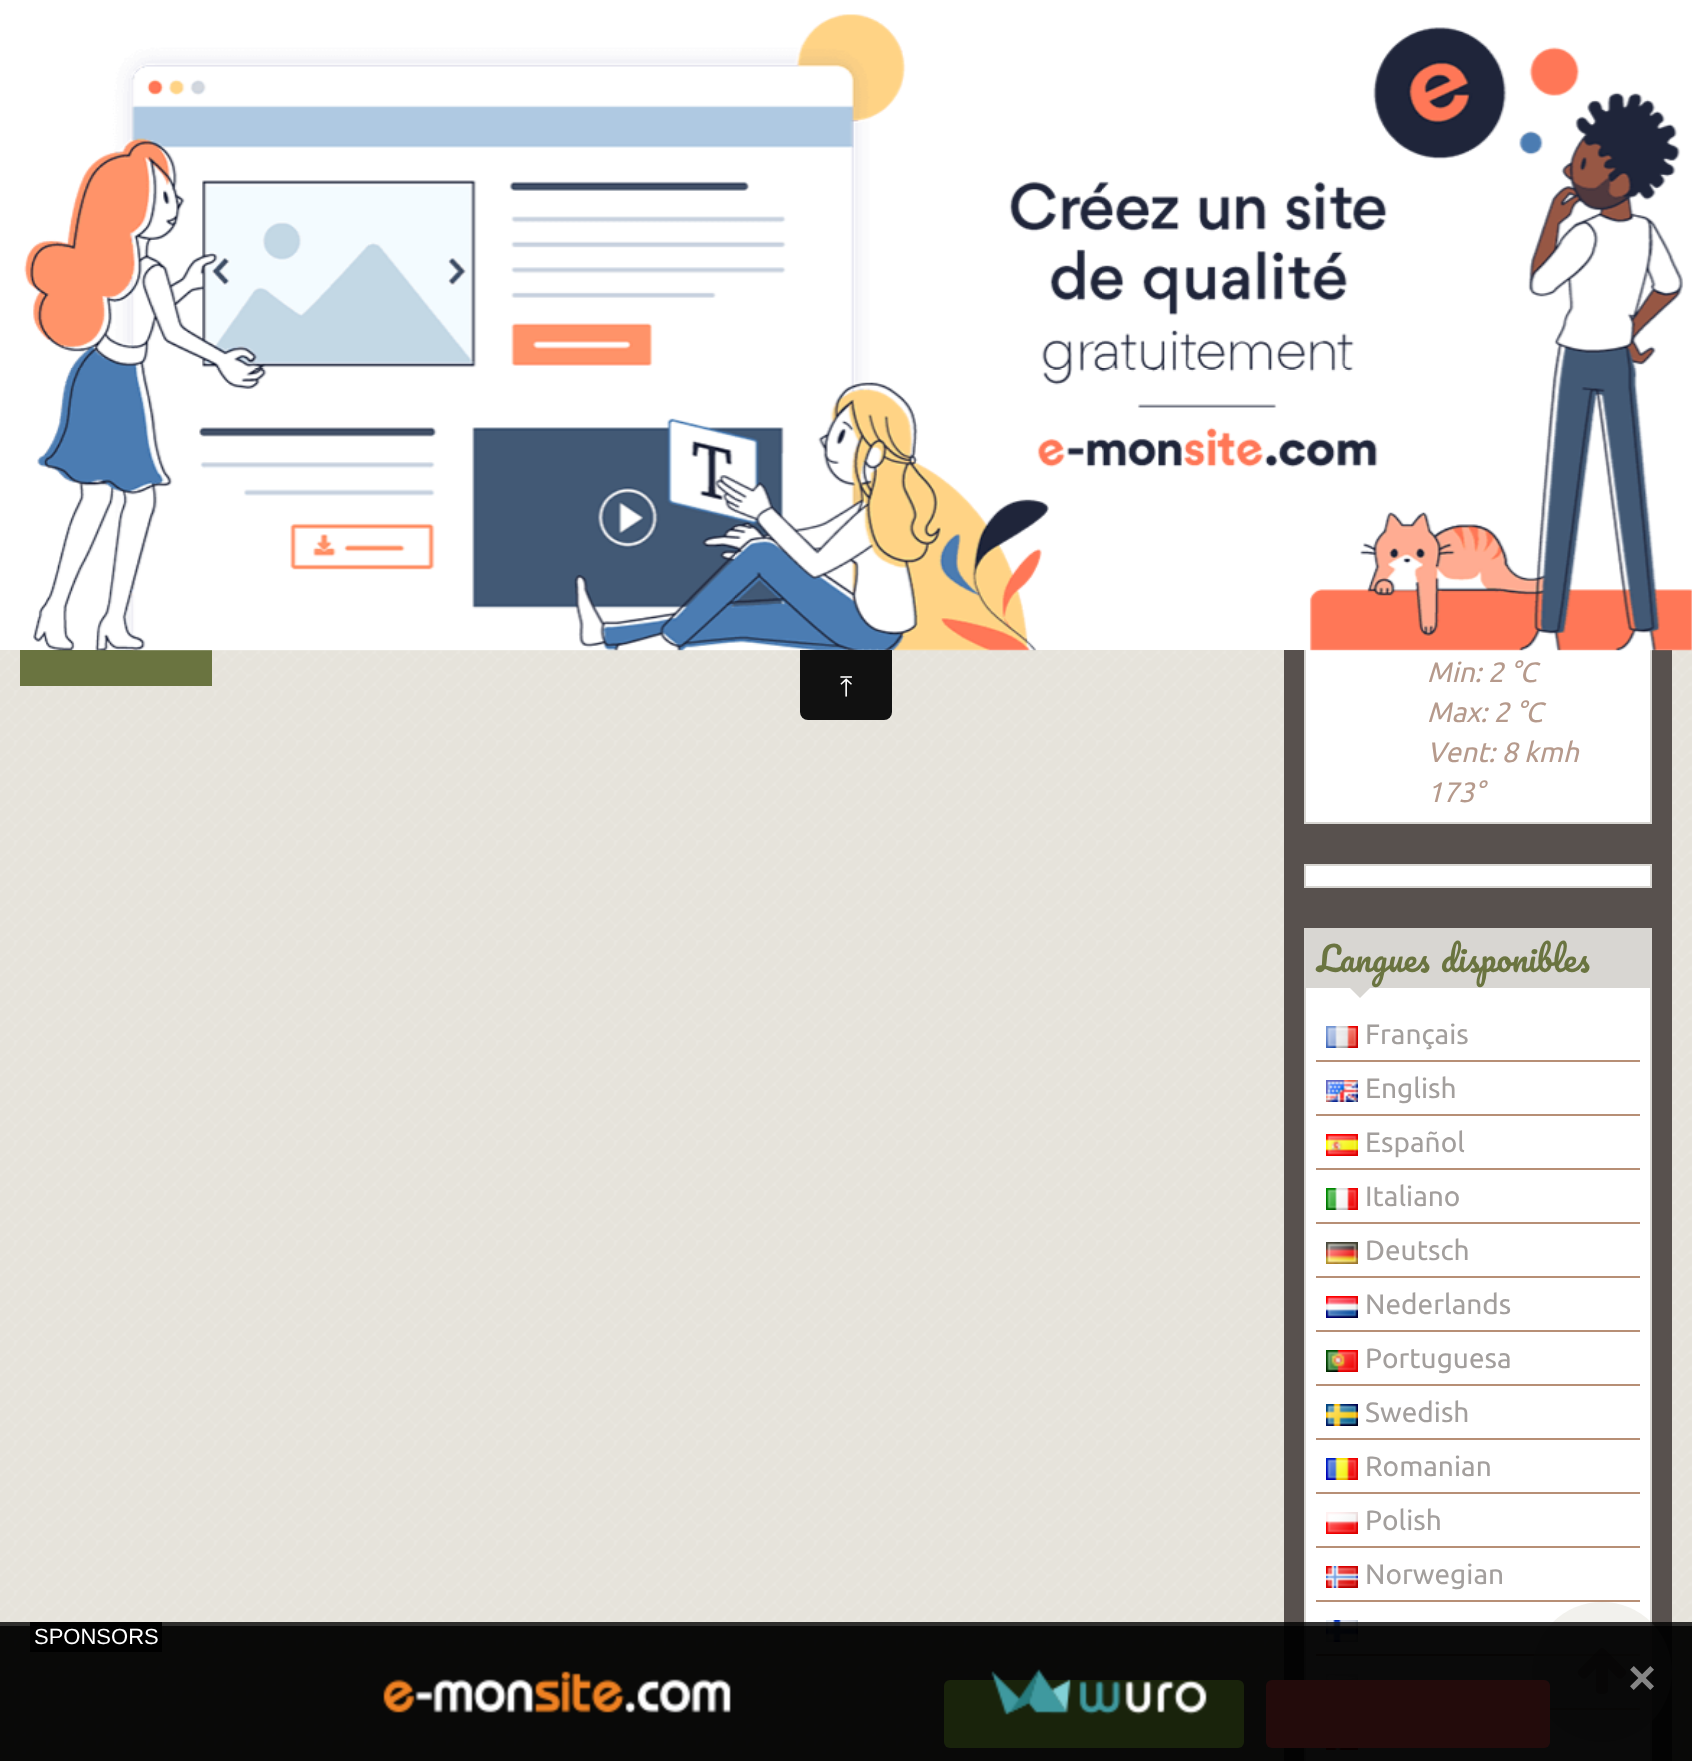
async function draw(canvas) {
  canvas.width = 1692
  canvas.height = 1761
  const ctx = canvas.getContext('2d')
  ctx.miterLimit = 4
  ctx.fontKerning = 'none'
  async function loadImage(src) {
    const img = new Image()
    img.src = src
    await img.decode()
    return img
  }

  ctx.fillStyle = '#e6e3db'
  ctx.fillRect(0, 0, 1692, 1761)
  ctx.drawImage(await loadImage('image0.png'), 0, 650, 1692, 1111)
  ctx.fillStyle = '#58514e'
  ctx.fillRect(1284, 650, 388, 1111)
  ctx.fillStyle = '#fff'
  ctx.fillRect(1306, 650, 344, 172)
  ctx.strokeStyle = '#d8d6d2'
  ctx.lineWidth = 2
  ctx.strokeRect(1305, 313, 346, 510)
  ctx.fillRect(0, 0, 1692, 650)
  ctx.fillStyle = '#6a7440'
  ctx.fillRect(20, 650, 192, 36)
  ctx.drawImage(await loadImage('image1.png'), 24, 14, 1668, 637)
  ctx.fillStyle = '#111'
  ctx.beginPath()
  ctx.roundRect(800, 650, 92, 70, [0, 0, 8, 8])
  ctx.fill()
  ctx.font = '28px FreeSerif'
  ctx.fillStyle = '#fff'
  ctx.fillText('⤒', 840, 696)
  ctx.font = 'italic 28px Ubuntu'
  ctx.fillStyle = '#b69a8c'
  ctx.fillText('Min: 2 °C', 1427, 682)
  ctx.fillText('Max: 2 °C', 1427, 722)
  ctx.fillText('Vent: 8 kmh', 1427, 762)
  ctx.fillText('173°', 1427, 802)
  ctx.fillStyle = '#fff'
  ctx.beginPath()
  ctx.rect(1305, 865, 346, 22)
  ctx.fill()
  ctx.stroke()
  ctx.fillRect(1306, 988, 344, 773)
  ctx.strokeRect(1305, 929, 346, 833)
  ctx.fillStyle = '#d8d6d2'
  ctx.fillRect(1306, 930, 344, 58)
  ctx.wordSpacing = '2px'
  ctx.font = '33.5px Pacifico'
  ctx.fillStyle = '#6a7440'
  ctx.fillText('Langues disponibles', 1317, 972)
  ctx.fillStyle = '#d8d6d2'
  ctx.beginPath()
  ctx.moveTo(1350, 988)
  ctx.lineTo(1370, 988)
  ctx.lineTo(1360, 998)
  ctx.closePath()
  ctx.fill()
  ctx.fillStyle = '#b78f76'
  ctx.fillRect(1316, 1060, 324, 2)
  ctx.drawImage(await loadImage('image2.png'), 1326, 1026, 32, 22)
  ctx.wordSpacing = '0px'
  ctx.font = '28px Ubuntu'
  ctx.fillStyle = '#a39f9d'
  ctx.fillText('Français', 1365, 1044)
  ctx.fillStyle = '#b78f76'
  ctx.fillRect(1316, 1114, 324, 2)
  ctx.drawImage(await loadImage('image3.png'), 1326, 1080, 32, 22)
  ctx.fillStyle = '#a39f9d'
  ctx.fillText('English', 1365, 1098)
  ctx.fillStyle = '#b78f76'
  ctx.fillRect(1316, 1168, 324, 2)
  ctx.drawImage(await loadImage('image4.png'), 1326, 1134, 32, 22)
  ctx.fillStyle = '#a39f9d'
  ctx.fillText('Español', 1365, 1152)
  ctx.fillStyle = '#b78f76'
  ctx.fillRect(1316, 1222, 324, 2)
  ctx.drawImage(await loadImage('image5.png'), 1326, 1188, 32, 22)
  ctx.fillStyle = '#a39f9d'
  ctx.fillText('Italiano', 1365, 1206)
  ctx.fillStyle = '#b78f76'
  ctx.fillRect(1316, 1276, 324, 2)
  ctx.drawImage(await loadImage('image6.png'), 1326, 1242, 32, 22)
  ctx.fillStyle = '#a39f9d'
  ctx.fillText('Deutsch', 1365, 1260)
  ctx.fillStyle = '#b78f76'
  ctx.fillRect(1316, 1330, 324, 2)
  ctx.drawImage(await loadImage('image7.png'), 1326, 1296, 32, 22)
  ctx.fillStyle = '#a39f9d'
  ctx.fillText('Nederlands', 1365, 1314)
  ctx.fillStyle = '#b78f76'
  ctx.fillRect(1316, 1384, 324, 2)
  ctx.drawImage(await loadImage('image8.png'), 1326, 1350, 32, 22)
  ctx.fillStyle = '#a39f9d'
  ctx.fillText('Portuguesa', 1365, 1368)
  ctx.fillStyle = '#b78f76'
  ctx.fillRect(1316, 1438, 324, 2)
  ctx.drawImage(await loadImage('image9.png'), 1326, 1404, 32, 22)
  ctx.fillStyle = '#a39f9d'
  ctx.fillText('Swedish', 1365, 1422)
  ctx.fillStyle = '#b78f76'
  ctx.fillRect(1316, 1492, 324, 2)
  ctx.drawImage(await loadImage('image10.png'), 1326, 1458, 32, 22)
  ctx.fillStyle = '#a39f9d'
  ctx.fillText('Romanian', 1365, 1476)
  ctx.fillStyle = '#b78f76'
  ctx.fillRect(1316, 1546, 324, 2)
  ctx.drawImage(await loadImage('image11.png'), 1326, 1512, 32, 22)
  ctx.fillStyle = '#a39f9d'
  ctx.fillText('Polish', 1365, 1530)
  ctx.fillStyle = '#b78f76'
  ctx.fillRect(1316, 1600, 324, 2)
  ctx.drawImage(await loadImage('image12.png'), 1326, 1566, 32, 22)
  ctx.fillStyle = '#a39f9d'
  ctx.fillText('Norwegian', 1365, 1584)
  ctx.fillStyle = '#b78f76'
  ctx.fillRect(1316, 1654, 324, 2)
  ctx.drawImage(await loadImage('image13.png'), 1326, 1620, 32, 22)
  ctx.fillRect(1550, 1708, 90, 2)
  ctx.drawImage(await loadImage('image14.png'), 1326, 1674, 32, 6)
  ctx.drawImage(await loadImage('image15.png'), 1326, 1748, 32, 2)
  ctx.fillStyle = '#e6e3db80'
  ctx.beginPath()
  ctx.arc(1602, 1672, 70, 0, 2 * Math.PI)
  ctx.fill()
  ctx.drawImage(await loadImage('image16.png'), 1577, 1648, 50, 46)
  ctx.fillStyle = '#000000cc'
  ctx.fillRect(0, 1626, 1692, 135)
  ctx.fillStyle = '#7daf3b'
  ctx.beginPath()
  ctx.roundRect(944, 1680, 300, 68, 6)
  ctx.fill()
  ctx.fillStyle = '#af3b3b'
  ctx.beginPath()
  ctx.roundRect(1266, 1680, 284, 68, 6)
  ctx.fill()
  ctx.fillStyle = '#000000cc'
  ctx.fillRect(0, 1622, 1692, 139)
  ctx.fillStyle = '#000'
  ctx.fillRect(30, 1622, 132, 30)
  ctx.font = '22px Liberation Sans'
  ctx.fillStyle = '#fff'
  ctx.fillText('SPONSORS', 34, 1644)
  ctx.drawImage(await loadImage('image17.png'), 383, 1671, 348, 42)
  ctx.drawImage(await loadImage('image18.png'), 991, 1669, 216, 46)
  ctx.font = 'bold 48px Liberation Sans'
  ctx.fillStyle = '#858585'
  ctx.fillText('×', 1628, 1694)
}

draw(document.querySelector('canvas'))
